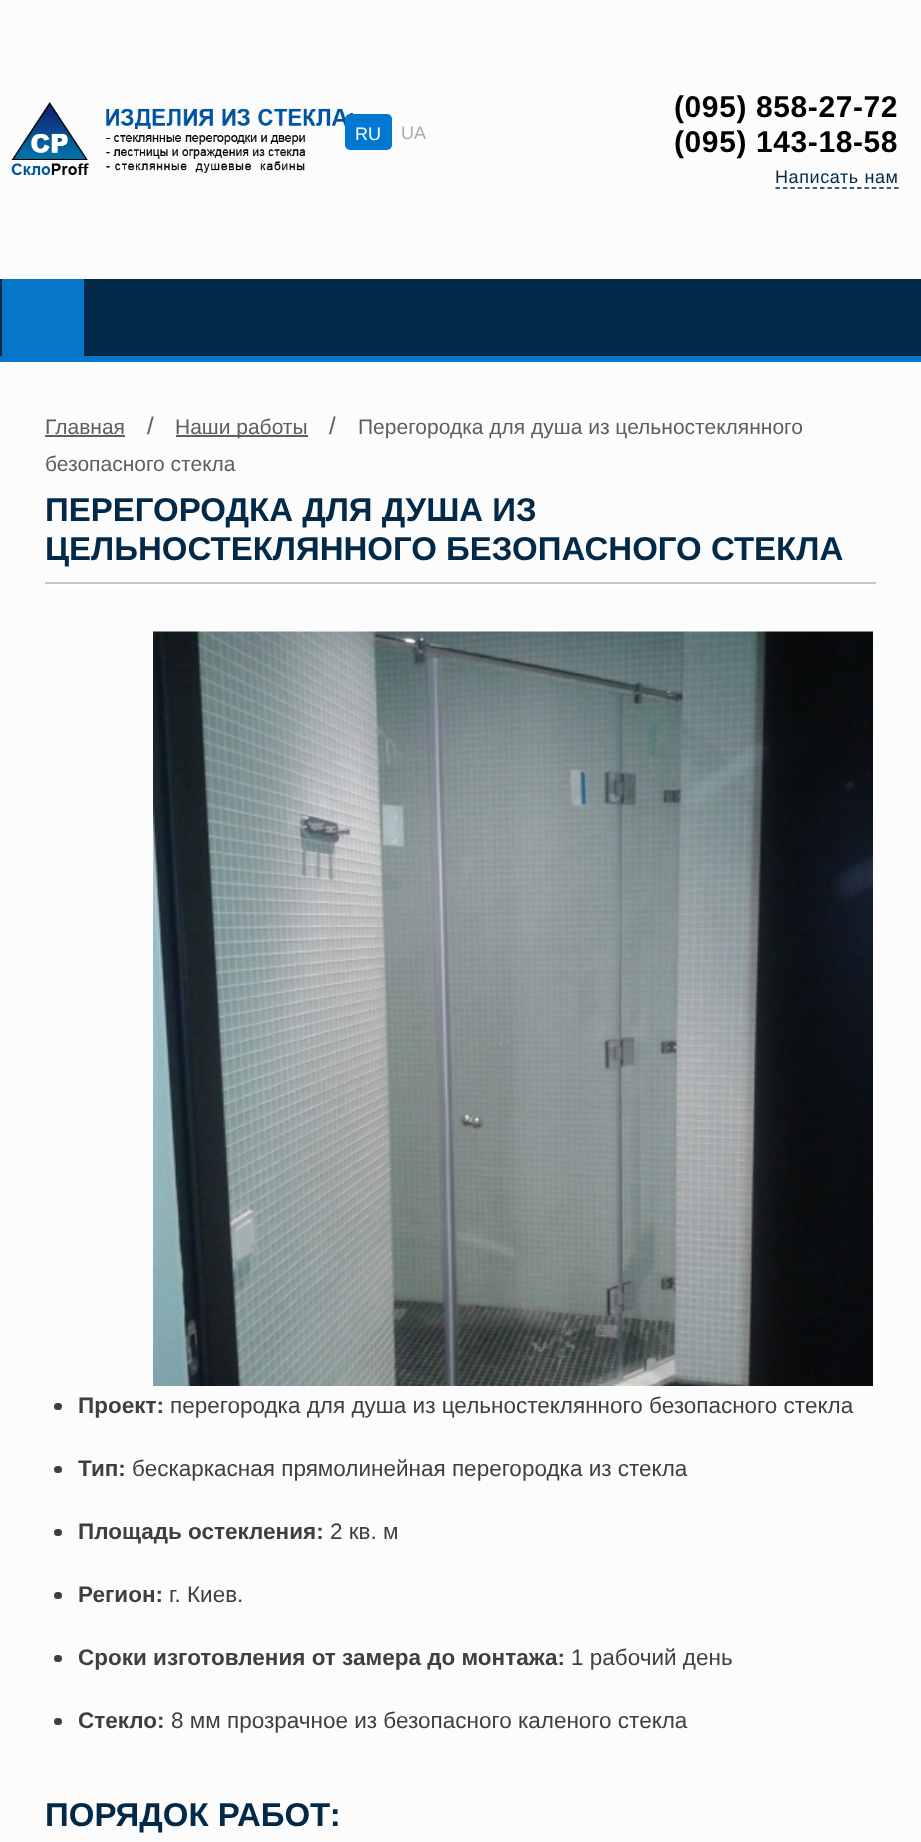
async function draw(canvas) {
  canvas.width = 921
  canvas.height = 1842
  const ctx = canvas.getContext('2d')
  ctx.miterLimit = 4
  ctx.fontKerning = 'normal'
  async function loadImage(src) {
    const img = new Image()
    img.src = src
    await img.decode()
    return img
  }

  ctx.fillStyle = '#fcfcfc'
  ctx.fillRect(0, 0, 921, 1842)
  ctx.drawImage(await loadImage('image0.png'), 11, 102, 342, 73)
  ctx.fillStyle = '#0078d1'
  ctx.beginPath()
  ctx.roundRect(346, 115, 45, 34, 4)
  ctx.fill()
  ctx.strokeStyle = '#0078d1'
  ctx.lineWidth = 2
  ctx.stroke()
  ctx.font = '18px Liberation Sans'
  ctx.fillStyle = '#fff'
  ctx.fillText('RU', 355, 140)
  ctx.fillStyle = '#acacac'
  ctx.fillText('UA', 401, 139)
  ctx.letterSpacing = '0.6px'
  ctx.font = 'bold 30px Liberation Sans'
  ctx.fillStyle = '#000'
  ctx.fillText('(095) 858-27-72', 674, 117)
  ctx.fillText('(095) 143-18-58', 674, 152)
  ctx.beginPath()
  ctx.moveTo(775.5, 188)
  ctx.lineTo(898.5, 188)
  ctx.strokeStyle = '#022948'
  ctx.lineWidth = 1.5
  ctx.setLineDash([4.5, 2.91])
  ctx.stroke()
  ctx.font = '18px Liberation Sans'
  ctx.fillStyle = '#022948'
  ctx.fillText('Написать нам', 775, 183)
  ctx.fillRect(0, 279, 921, 77)
  ctx.fillStyle = '#0676c8'
  ctx.fillRect(0, 356, 921, 6)
  ctx.fillRect(2, 279, 82, 77)
  ctx.letterSpacing = '0px'
  ctx.font = '21px Liberation Sans'
  ctx.fillStyle = '#5f5d5d'
  ctx.fillText('Главная', 45, 434)
  ctx.fillRect(45, 435, 80, 2)
  ctx.font = '24px Liberation Sans'
  ctx.fillText('/', 147, 434)
  ctx.fillRect(176, 435, 132, 2)
  ctx.font = '21px Liberation Sans'
  ctx.fillText('Наши работы', 175, 434)
  ctx.font = '24px Liberation Sans'
  ctx.fillText('/', 329, 434)
  ctx.font = '21px Liberation Sans'
  ctx.fillText('Перегородка для душа из цельностеклянного', 358, 434)
  ctx.fillText('безопасного стекла', 45, 471)
  ctx.font = 'bold 33px Liberation Sans'
  ctx.fillStyle = '#022948'
  ctx.fillText('ПЕРЕГОРОДКА ДЛЯ ДУША ИЗ', 45, 521)
  ctx.fillText('ЦЕЛЬНОСТЕКЛЯННОГО БЕЗОПАСНОГО СТЕКЛА', 45, 560)
  ctx.fillStyle = '#c7c6c6'
  ctx.fillRect(45, 582, 831, 2)
  ctx.fillStyle = '#fff'
  ctx.fillRect(45, 584, 831, 2)
  ctx.drawImage(await loadImage('image1.png'), 153, 631, 720, 755)
  ctx.fillStyle = '#3f3f3f'
  ctx.beginPath()
  ctx.roundRect(54, 1403, 8, 7, 3.5)
  ctx.fill()
  ctx.font = 'bold 22.5px Liberation Sans'
  ctx.fillText('Проект:', 78, 1413)
  ctx.font = '22.5px Liberation Sans'
  ctx.fillText('перегородка для душа из цельностеклянного безопасного стекла', 170, 1413)
  ctx.beginPath()
  ctx.roundRect(54, 1466, 8, 7, 3.5)
  ctx.fill()
  ctx.font = 'bold 22.5px Liberation Sans'
  ctx.fillText('Тип:', 78, 1476)
  ctx.font = '22.5px Liberation Sans'
  ctx.fillText('бескаркасная прямолинейная перегородка из стекла', 132, 1476)
  ctx.beginPath()
  ctx.roundRect(54, 1529, 8, 7, 3.5)
  ctx.fill()
  ctx.font = 'bold 22.5px Liberation Sans'
  ctx.fillText('Площадь остекления:', 78, 1539)
  ctx.font = '22.5px Liberation Sans'
  ctx.fillText('2 кв. м', 330, 1539)
  ctx.beginPath()
  ctx.roundRect(54, 1592, 8, 7, 3.5)
  ctx.fill()
  ctx.font = 'bold 22.5px Liberation Sans'
  ctx.fillText('Регион:', 78, 1602)
  ctx.font = '22.5px Liberation Sans'
  ctx.fillText('г. Киев.', 169, 1602)
  ctx.beginPath()
  ctx.roundRect(54, 1655, 8, 7, 3.5)
  ctx.fill()
  ctx.font = 'bold 22.5px Liberation Sans'
  ctx.fillText('Сроки изготовления от замера до монтажа:', 78, 1665)
  ctx.font = '22.5px Liberation Sans'
  ctx.fillText('1 рабочий день', 571, 1665)
  ctx.beginPath()
  ctx.roundRect(54, 1718, 8, 7, 3.5)
  ctx.fill()
  ctx.font = 'bold 22.5px Liberation Sans'
  ctx.fillText('Стекло:', 78, 1728)
  ctx.font = '22.5px Liberation Sans'
  ctx.fillText('8 мм прозрачное из безопасного каленого стекла', 171, 1728)
  ctx.font = 'bold 33px Liberation Sans'
  ctx.fillStyle = '#022948'
  ctx.fillText('ПОРЯДОК РАБОТ:', 45, 1826)
}

draw(document.querySelector('canvas'))
